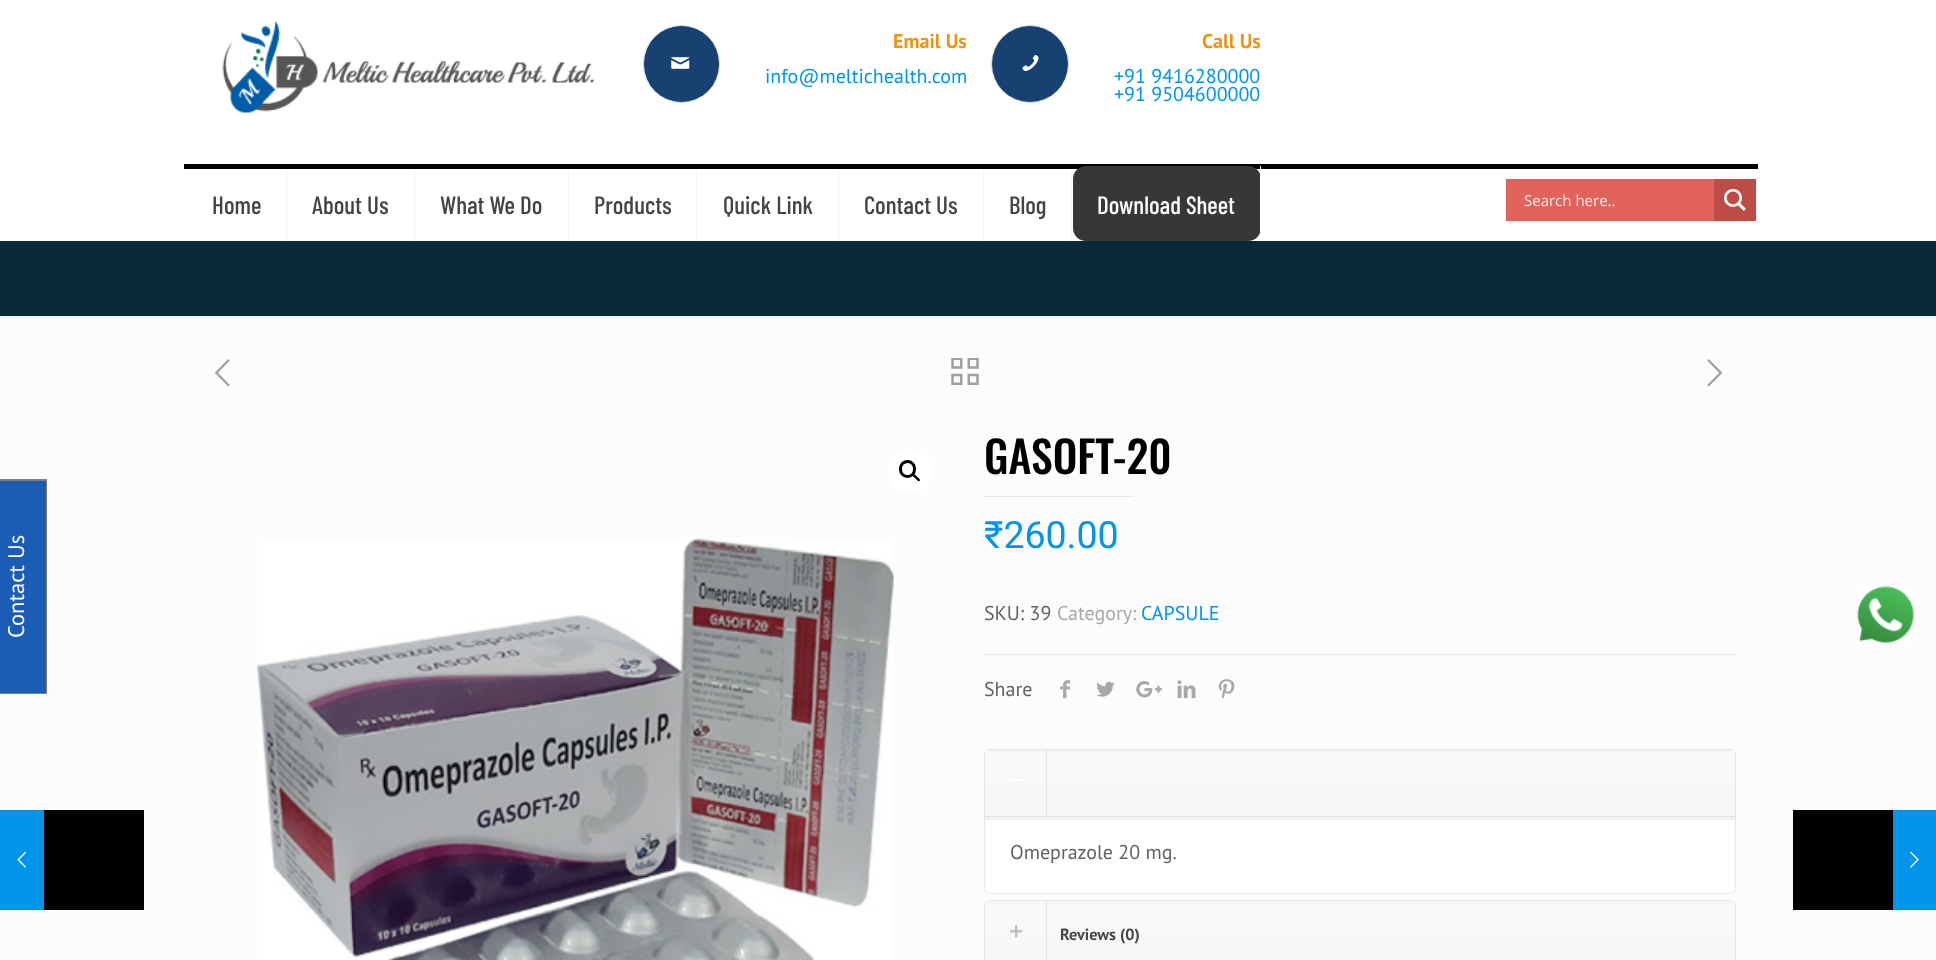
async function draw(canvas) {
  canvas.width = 1936
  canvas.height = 960
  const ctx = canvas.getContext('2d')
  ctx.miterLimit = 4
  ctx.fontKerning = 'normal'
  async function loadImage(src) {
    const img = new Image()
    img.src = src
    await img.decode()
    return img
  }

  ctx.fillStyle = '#fcfcfc'
  ctx.fillRect(0, 0, 1936, 960)
  ctx.fillStyle = '#efefef'
  ctx.fillRect(985, 817, 750, 1)
  ctx.fillStyle = '#fff'
  ctx.fillRect(0, 0, 1936, 241)
  ctx.fillStyle = '#f2f2f2'
  ctx.fillRect(1071, 166, 1, 75)
  ctx.fillRect(983, 166, 1, 75)
  ctx.fillRect(838, 166, 1, 75)
  ctx.fillRect(696, 166, 1, 75)
  ctx.fillRect(568, 166, 1, 75)
  ctx.fillRect(414, 166, 1, 75)
  ctx.fillRect(286, 166, 1, 75)
  ctx.drawImage(await loadImage('image0.png'), 222, 21, 372, 92)
  ctx.fillStyle = '#174171'
  ctx.beginPath()
  ctx.roundRect(643.5, 25.5, 76, 77, 38)
  ctx.fill()
  ctx.strokeStyle = '#e1e1e1'
  ctx.stroke()
  ctx.drawImage(await loadImage('image1.png'), 671, 57, 19, 12)
  ctx.font = 'bold 20px PT Sans'
  ctx.fillStyle = '#ef9310'
  ctx.fillText('Email Us', 893, 48)
  ctx.font = '20px PT Sans'
  ctx.fillStyle = '#0095eb'
  ctx.fillText('info@meltichealth.com', 765, 83)
  ctx.fillStyle = '#174171'
  ctx.beginPath()
  ctx.arc(1030, 64, 38.5, 0, 2 * Math.PI)
  ctx.fill()
  ctx.stroke()
  ctx.drawImage(await loadImage('image2.png'), 1022, 55, 17, 16)
  ctx.font = 'bold 20px PT Sans'
  ctx.fillStyle = '#ef9310'
  ctx.fillText('Call Us', 1202, 48)
  ctx.font = '20px PT Sans'
  ctx.fillStyle = '#0095eb'
  ctx.fillText('+91 9416280000', 1114, 83)
  ctx.fillText('+91 9504600000', 1114, 101)
  ctx.fillStyle = '#000'
  ctx.fillRect(184, 164, 1574, 5)
  ctx.font = '500 25px Barlow Condensed'
  ctx.fillStyle = '#444'
  ctx.fillText('Home', 212, 214)
  ctx.fillText('About Us', 312, 214)
  ctx.fillText('What We Do', 440, 214)
  ctx.fillText('Products', 594, 214)
  ctx.fillText('Quick Link', 723, 214)
  ctx.fillText('Contact Us', 864, 214)
  ctx.fillText('Blog', 1009, 214)
  ctx.fillStyle = '#373737'
  ctx.beginPath()
  ctx.roundRect(1073, 166, 188, 75, 13)
  ctx.fill()
  ctx.fillStyle = '#fcfcfc'
  ctx.fillRect(1260, 166, 1, 75)
  ctx.fillText('Download Sheet', 1097, 214)
  ctx.fillStyle = '#e1635c'
  ctx.fillRect(1506, 179, 208, 42)
  ctx.font = '15px Open Sans'
  ctx.fillStyle = '#fbe8e7'
  ctx.fillText('Search here..', 1524, 206)
  ctx.fillStyle = '#be4c46'
  ctx.fillRect(1714, 179, 42, 42)
  ctx.drawImage(await loadImage('image3.png'), 1724, 189, 22, 22)
  ctx.fillStyle = '#072a36'
  ctx.fillRect(0, 241, 1936, 75)
  ctx.fillStyle = '#f2f2f2'
  ctx.fillRect(0, 316, 1936, 3)
  ctx.fillStyle = '#1b5db5'
  ctx.fillRect(0, 481, 46, 212)
  ctx.fillStyle = '#7f7f7f'
  ctx.fillRect(0, 479, 47, 2)
  ctx.fillRect(46, 479, 1, 215)
  ctx.fillRect(0, 693, 47, 1)
  ctx.font = '22.5px PT Sans'
  ctx.fillStyle = '#fcfcfc'
  ctx.save()
  ctx.translate(24, 638)
  ctx.rotate(-90 * Math.PI / 180)
  ctx.fillText('Contact Us', 0, 0)
  ctx.restore()
  ctx.drawImage(await loadImage('image4.png'), 215, 359, 15, 28)
  ctx.drawImage(await loadImage('image5.png'), 951, 358, 28, 27)
  ctx.drawImage(await loadImage('image6.png'), 1707, 359, 15, 28)
  ctx.fillStyle = '#fff'
  ctx.beginPath()
  ctx.arc(910.5, 471.5, 22.5, 0, 2 * Math.PI)
  ctx.fill()
  ctx.beginPath()
  ctx.roundRect(900.5, 461.5, 14, 15, 7)
  ctx.strokeStyle = '#000'
  ctx.lineWidth = 3
  ctx.stroke()
  ctx.fillStyle = '#000'
  ctx.beginPath()
  ctx.moveTo(912.5, 474)
  ctx.bezierCurveTo(914, 472.5, 916.5, 476, 917, 476.5)
  ctx.bezierCurveTo(918, 477.5, 921, 479.5, 919.5, 481)
  ctx.bezierCurveTo(918.5, 482.5, 916, 479, 915.5, 478.5)
  ctx.bezierCurveTo(914.5, 477.5, 911, 475.5, 912.5, 474)
  ctx.closePath()
  ctx.fill()
  ctx.drawImage(await loadImage('image7.png'), 257, 538, 637, 422)
  ctx.font = '500 43.75px Oswald'
  ctx.fillText('GASOFT-20', 984, 474)
  ctx.fillStyle = '#e8e8e8'
  ctx.fillRect(984, 496, 150, 1)
  ctx.font = '37.5px Roboto'
  ctx.fillStyle = '#0095eb'
  ctx.fillText('₹260.00', 984, 548)
  ctx.font = '20px PT Sans'
  ctx.fillStyle = '#626262'
  ctx.fillText('SKU: 39', 984, 620)
  ctx.fillStyle = '#a8a8a8'
  ctx.fillText('Category:', 1057, 620)
  ctx.fillStyle = '#0095eb'
  ctx.fillText('CAPSULE', 1141, 620)
  ctx.fillStyle = '#e8e8e8'
  ctx.fillRect(984, 654, 752, 1)
  ctx.fillStyle = '#626262'
  ctx.fillText('Share', 984, 696)
  ctx.drawImage(await loadImage('image8.png'), 1060, 680, 10, 19)
  ctx.drawImage(await loadImage('image9.png'), 1096, 681, 19, 16)
  ctx.drawImage(await loadImage('image10.png'), 1136, 681, 26, 17)
  ctx.drawImage(await loadImage('image11.png'), 1177, 680, 19, 19)
  ctx.drawImage(await loadImage('image12.png'), 1218, 679, 17, 20)
  ctx.beginPath()
  ctx.roundRect(984.5, 749.5, 751, 144, 5.5)
  ctx.strokeStyle = '#e8e8e8'
  ctx.lineWidth = 1
  ctx.stroke()
  ctx.drawImage(await loadImage('image13.png'), 985, 750, 750, 66)
  ctx.fillStyle = '#e2e2e2'
  ctx.fillRect(985, 816, 750, 1)
  ctx.drawImage(await loadImage('image14.png'), 1010, 779, 12, 2)
  ctx.fillStyle = '#00000014'
  ctx.fillRect(1046, 750, 1, 66)
  ctx.fillStyle = '#fff'
  ctx.beginPath()
  ctx.roundRect(985, 818, 750, 75, [0, 0, 5, 5])
  ctx.fill()
  ctx.fillStyle = '#f2f2f2'
  ctx.fillRect(985, 818, 750, 2)
  ctx.fillStyle = '#626262'
  ctx.fillText('Omeprazole 20 mg.', 1010, 859)
  ctx.beginPath()
  ctx.roundRect(984.5, 900.5, 751, 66, 5.5)
  ctx.stroke()
  ctx.drawImage(await loadImage('image15.png'), 985, 901, 750, 59)
  ctx.drawImage(await loadImage('image16.png'), 1010, 925, 13, 13)
  ctx.fillStyle = '#00000014'
  ctx.fillRect(1046, 901, 1, 59)
  ctx.font = 'bold 16.25px PT Sans'
  ctx.fillStyle = '#444'
  ctx.fillText('Reviews (0)', 1060, 940)
  ctx.drawImage(await loadImage('image17.png'), 1857, 586, 57, 57)
  ctx.fillStyle = '#0095eb'
  ctx.fillRect(0, 810, 44, 100)
  ctx.drawImage(await loadImage('image18.png'), 17, 851, 10, 17)
  ctx.fillStyle = '#000'
  ctx.fillRect(44, 810, 100, 100)
  ctx.fillRect(1793, 810, 100, 100)
  ctx.fillStyle = '#0095eb'
  ctx.fillRect(1893, 810, 43, 100)
  ctx.drawImage(await loadImage('image19.png'), 1910, 851, 9, 17)
}

draw(document.querySelector('canvas'))
